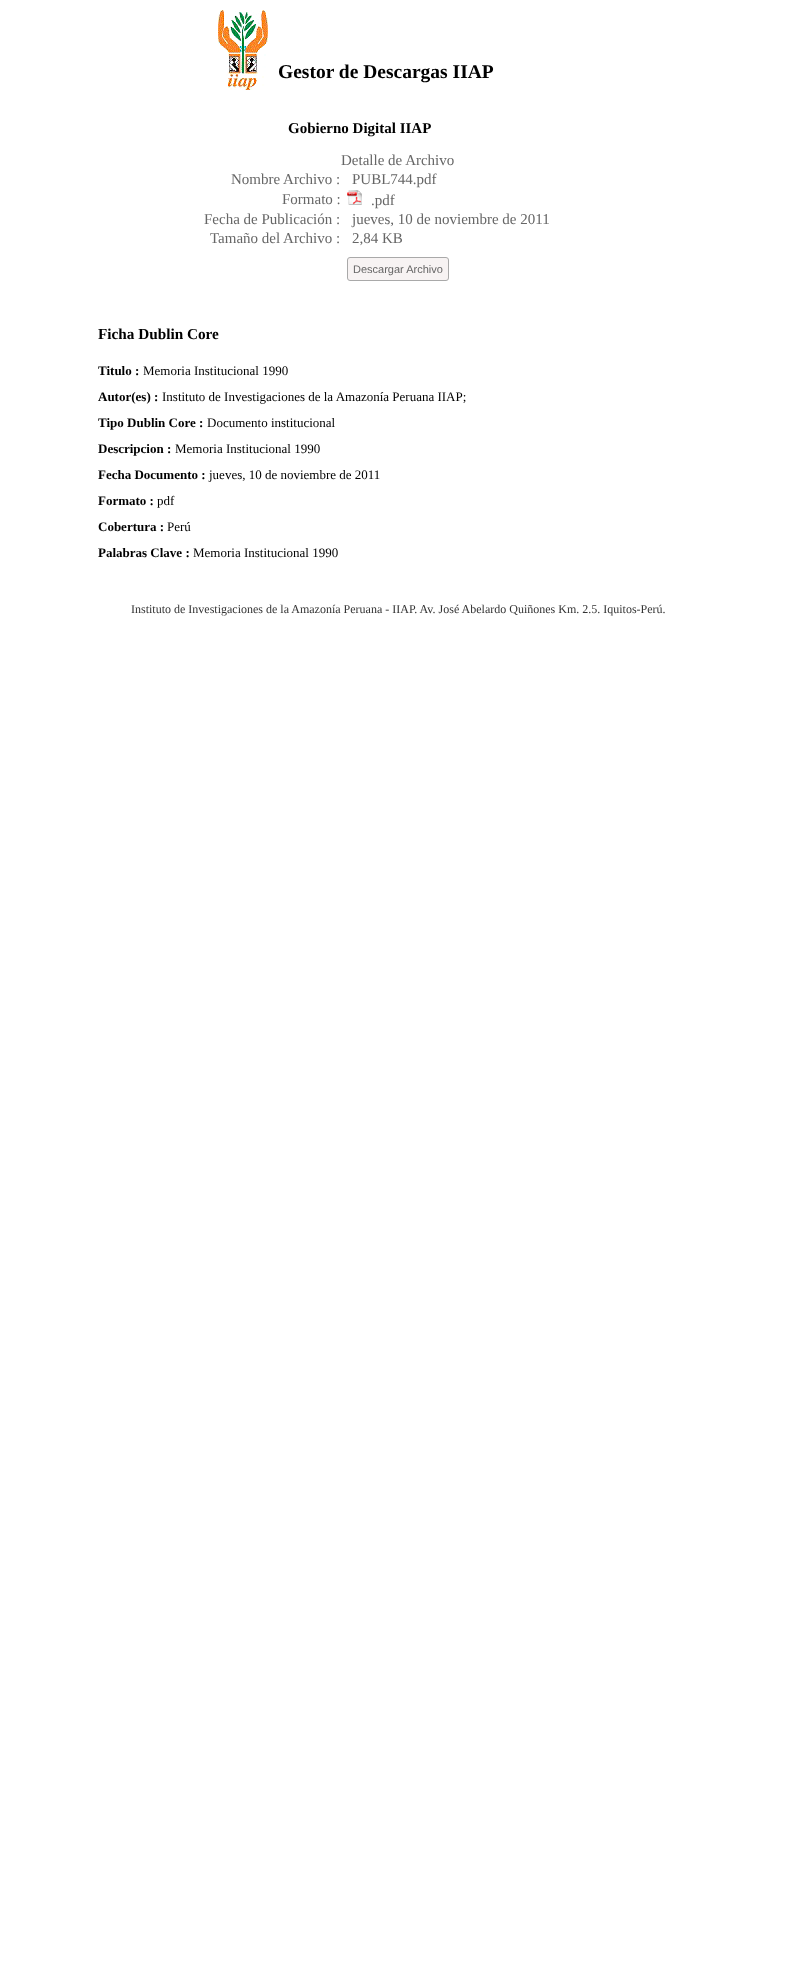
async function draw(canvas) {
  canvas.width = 796
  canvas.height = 1976
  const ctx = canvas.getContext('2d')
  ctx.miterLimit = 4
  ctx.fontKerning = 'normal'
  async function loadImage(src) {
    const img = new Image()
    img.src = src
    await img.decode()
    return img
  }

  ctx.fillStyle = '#fff'
  ctx.fillRect(0, 0, 796, 1976)
  ctx.drawImage(await loadImage('image0.png'), 218, 10, 50, 80)
  ctx.font = 'bold 19.5px Liberation Serif'
  ctx.fillStyle = '#000'
  ctx.fillText('Gestor de Descargas IIAP', 278, 78)
  ctx.font = 'bold 15px Liberation Serif'
  ctx.fillText('Gobierno Digital IIAP', 288, 133)
  ctx.font = '15px Liberation Serif'
  ctx.fillStyle = '#666'
  ctx.fillText('Detalle de Archivo', 341, 165)
  ctx.fillText('Nombre Archivo :', 231, 184)
  ctx.fillText('PUBL744.pdf', 352, 184)
  ctx.fillText('Formato :', 282, 204)
  ctx.drawImage(await loadImage('image1.png'), 347, 190, 15, 15)
  ctx.fillText('.pdf', 371, 205)
  ctx.fillText('Fecha de Publicación :', 204, 224)
  ctx.fillText('jueves, 10 de noviembre de 2011', 352, 224)
  ctx.fillText('Tamaño del Archivo :', 210, 243)
  ctx.fillText('2,84 KB', 352, 243)
  ctx.fillStyle = '#f7f3f3'
  ctx.beginPath()
  ctx.roundRect(347.5, 257.5, 101, 23, 2.5)
  ctx.fill()
  ctx.strokeStyle = '#a9a9a9'
  ctx.stroke()
  ctx.font = '11px Liberation Sans'
  ctx.fillStyle = '#666'
  ctx.fillText('Descargar Archivo', 353, 273)
  ctx.font = 'bold 15.25px Liberation Serif'
  ctx.fillStyle = '#000'
  ctx.fillText('Ficha Dublin Core', 98, 339)
  ctx.font = 'bold 13px Liberation Serif'
  ctx.fillText('Titulo :', 98, 375)
  ctx.font = '13px Liberation Serif'
  ctx.fillText('Memoria Institucional 1990', 143, 375)
  ctx.font = 'bold 13px Liberation Serif'
  ctx.fillText('Autor(es) :', 98, 401)
  ctx.font = '13px Liberation Serif'
  ctx.fillText('Instituto de Investigaciones de la Amazonía Peruana IIAP;', 162, 401)
  ctx.font = 'bold 13px Liberation Serif'
  ctx.fillText('Tipo Dublin Core :', 98, 427)
  ctx.font = '13px Liberation Serif'
  ctx.fillText('Documento institucional', 207, 427)
  ctx.font = 'bold 13px Liberation Serif'
  ctx.fillText('Descripcion :', 98, 453)
  ctx.font = '13px Liberation Serif'
  ctx.fillText('Memoria Institucional 1990', 175, 453)
  ctx.font = 'bold 13px Liberation Serif'
  ctx.fillText('Fecha Documento :', 98, 479)
  ctx.font = '13px Liberation Serif'
  ctx.fillText('jueves, 10 de noviembre de 2011', 209, 479)
  ctx.font = 'bold 13px Liberation Serif'
  ctx.fillText('Formato :', 98, 505)
  ctx.font = '13px Liberation Serif'
  ctx.fillText('pdf', 157, 505)
  ctx.font = 'bold 13px Liberation Serif'
  ctx.fillText('Cobertura :', 98, 531)
  ctx.font = '13px Liberation Serif'
  ctx.fillText('Perú', 167, 531)
  ctx.font = 'bold 13px Liberation Serif'
  ctx.fillText('Palabras Clave :', 98, 557)
  ctx.font = '13px Liberation Serif'
  ctx.fillText('Memoria Institucional 1990', 193, 557)
  ctx.font = '12px Liberation Serif'
  ctx.fillStyle = '#333'
  ctx.fillText('Instituto de Investigaciones de la Amazonía Peruana - IIAP. Av. José Abelardo Quiñones Km. 2.5. Iquitos-Perú.', 131, 613)
}

draw(document.querySelector('canvas'))
